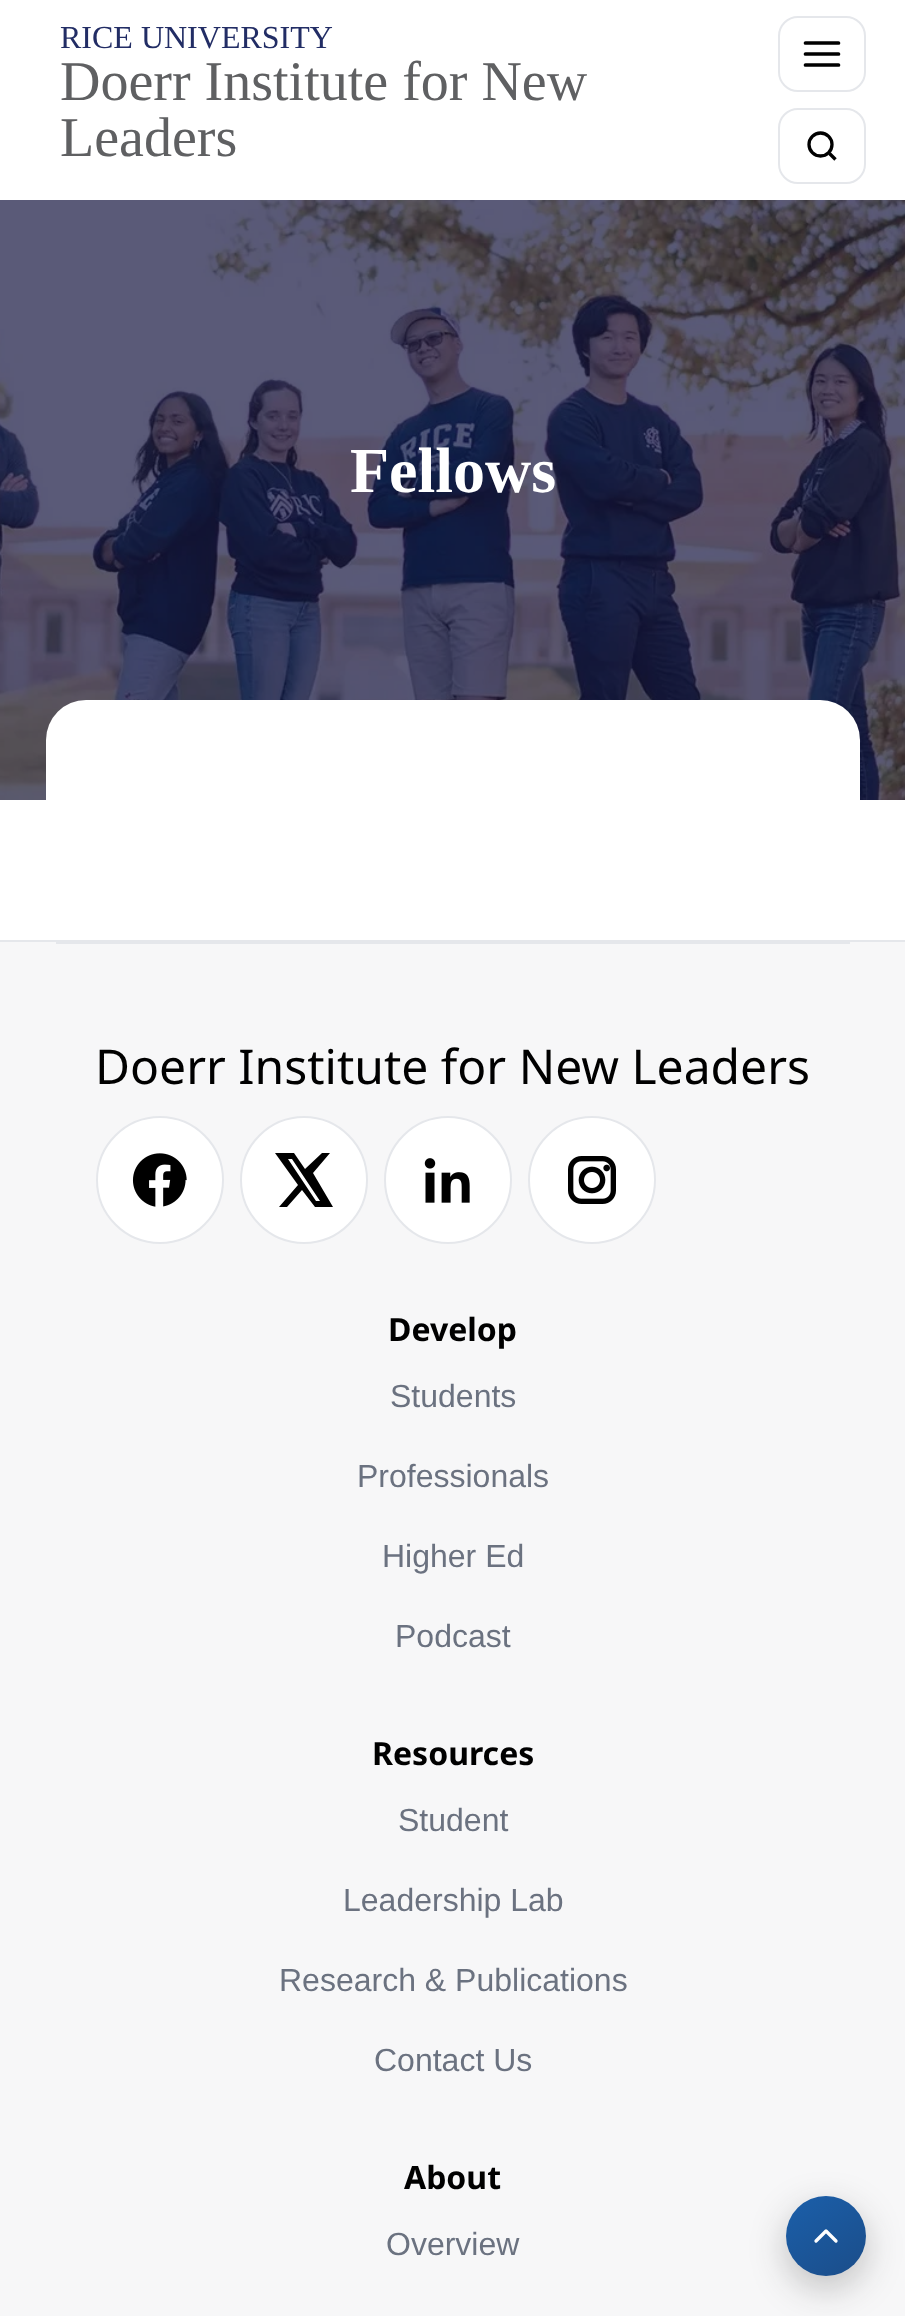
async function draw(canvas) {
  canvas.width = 905
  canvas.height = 2316
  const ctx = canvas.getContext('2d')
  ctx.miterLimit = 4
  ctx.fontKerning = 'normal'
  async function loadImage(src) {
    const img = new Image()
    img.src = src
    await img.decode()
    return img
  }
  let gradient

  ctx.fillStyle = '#fff'
  ctx.fillRect(0, 0, 905, 2316)
  ctx.font = '32px Liberation Serif'
  ctx.fillStyle = '#222d65'
  ctx.fillText('RICE UNIVERSITY', 60, 48)
  ctx.font = '56px Liberation Serif'
  ctx.fillStyle = '#5f6062'
  ctx.fillText('Doerr Institute for New', 60, 100)
  ctx.fillText('Leaders', 60, 156)
  ctx.beginPath()
  ctx.roundRect(779, 17, 86, 74, 19)
  ctx.strokeStyle = '#e5e7eb'
  ctx.lineWidth = 2
  ctx.stroke()
  ctx.beginPath()
  ctx.moveTo(805.5, 43)
  ctx.lineTo(838.5, 43)
  ctx.moveTo(805.5, 54)
  ctx.lineTo(838.5, 54)
  ctx.moveTo(805.5, 65)
  ctx.lineTo(838.5, 65)
  ctx.strokeStyle = '#000'
  ctx.lineWidth = 3.7
  ctx.lineCap = 'round'
  ctx.stroke()
  ctx.beginPath()
  ctx.roundRect(779, 109, 86, 74, 19)
  ctx.strokeStyle = '#e5e7eb'
  ctx.lineWidth = 2
  ctx.stroke()
  ctx.beginPath()
  ctx.arc(820.5, 144.5, 11.5, 0, 2 * Math.PI)
  ctx.strokeStyle = '#000'
  ctx.lineWidth = 3.3
  ctx.stroke()
  ctx.beginPath()
  ctx.moveTo(835.5, 159.5)
  ctx.lineTo(829.5, 153.5)
  ctx.lineCap = 'butt'
  ctx.stroke()
  ctx.drawImage(await loadImage('image0.png'), 0, 200, 905, 600)
  ctx.font = 'bold 64px Liberation Serif'
  ctx.fillStyle = '#fff'
  ctx.fillText('Fellows', 350, 492)
  ctx.beginPath()
  ctx.roundRect(46, 700, 814, 160, 40)
  ctx.fill()
  ctx.fillStyle = '#f7f7f8'
  ctx.fillRect(0, 942, 905, 1374)
  ctx.fillStyle = '#e5e7eb'
  ctx.fillRect(0, 940, 905, 2)
  ctx.fillRect(56, 942, 794, 2)
  ctx.font = '48px Noto Sans'
  ctx.fillStyle = '#000'
  ctx.fillText('Doerr Institute for New Leaders', 95, 1084)
  ctx.fillStyle = '#fff'
  ctx.beginPath()
  ctx.arc(160, 1180, 63, 0, 2 * Math.PI)
  ctx.fill()
  ctx.strokeStyle = '#e5e7eb'
  ctx.lineWidth = 2
  ctx.stroke()
  ctx.drawImage(await loadImage('image1.png'), 132, 1153, 55, 54)
  ctx.beginPath()
  ctx.arc(304, 1180, 63, 0, 2 * Math.PI)
  ctx.fill()
  ctx.stroke()
  ctx.fillStyle = '#000'
  ctx.beginPath()
  ctx.moveTo(322, 1153)
  ctx.lineTo(330, 1153)
  ctx.lineTo(313, 1173)
  ctx.lineTo(333, 1207)
  ctx.lineTo(315, 1207)
  ctx.lineTo(302, 1190)
  ctx.lineTo(287, 1207)
  ctx.lineTo(279, 1207)
  ctx.lineTo(298, 1185)
  ctx.lineTo(275, 1153)
  ctx.lineTo(294, 1153)
  ctx.lineTo(305, 1169)
  ctx.closePath()
  ctx.moveTo(316, 1201)
  ctx.lineTo(320, 1201)
  ctx.lineTo(292, 1159)
  ctx.lineTo(288, 1159)
  ctx.closePath()
  ctx.fill()
  ctx.fillStyle = '#fff'
  ctx.beginPath()
  ctx.arc(448, 1180, 63, 0, 2 * Math.PI)
  ctx.fill()
  ctx.stroke()
  ctx.drawImage(await loadImage('image2.png'), 424, 1158, 46, 45)
  ctx.beginPath()
  ctx.arc(592, 1180, 63, 0, 2 * Math.PI)
  ctx.fill()
  ctx.stroke()
  ctx.drawImage(await loadImage('image3.png'), 568, 1156, 48, 48)
  ctx.font = 'bold 32px Noto Sans'
  ctx.fillStyle = '#000'
  ctx.fillText('Develop', 388, 1341)
  ctx.font = '32px Liberation Sans'
  ctx.fillStyle = '#6b7280'
  ctx.fillText('Students', 390, 1407)
  ctx.fillText('Professionals', 357, 1487)
  ctx.fillText('Higher Ed', 382, 1567)
  ctx.fillText('Podcast', 395, 1647)
  ctx.font = 'bold 32px Noto Sans'
  ctx.fillStyle = '#000'
  ctx.fillText('Resources', 372, 1765)
  ctx.font = '32px Liberation Sans'
  ctx.fillStyle = '#6b7280'
  ctx.fillText('Student', 398, 1831)
  ctx.fillText('Leadership Lab', 343, 1911)
  ctx.fillText('Research & Publications', 279, 1991)
  ctx.fillText('Contact Us', 374, 2071)
  ctx.font = 'bold 32px Noto Sans'
  ctx.fillStyle = '#000'
  ctx.fillText('About', 404, 2189)
  ctx.font = '32px Liberation Sans'
  ctx.fillStyle = '#6b7280'
  ctx.fillText('Overview', 386, 2255)
  ctx.fillStyle = '#19191940'
  ctx.filter = 'blur(18px)'
  ctx.beginPath()
  ctx.roundRect(786, 2208, 80, 80, 40)
  ctx.fill()
  ctx.filter = 'none'
  gradient = ctx.createLinearGradient(794, 2190, 858, 2282)
  gradient.addColorStop(0, '#1b5faa')
  gradient.addColorStop(1, '#1b4d89')
  ctx.fillStyle = gradient
  ctx.beginPath()
  ctx.arc(826, 2236, 40, 0, 2 * Math.PI)
  ctx.fill()
  ctx.beginPath()
  ctx.moveTo(836, 2241)
  ctx.lineTo(826, 2231)
  ctx.lineTo(816, 2241)
  ctx.strokeStyle = '#fefefe'
  ctx.lineWidth = 3.3
  ctx.lineCap = 'round'
  ctx.lineJoin = 'round'
  ctx.stroke()
}

draw(document.querySelector('canvas'))
